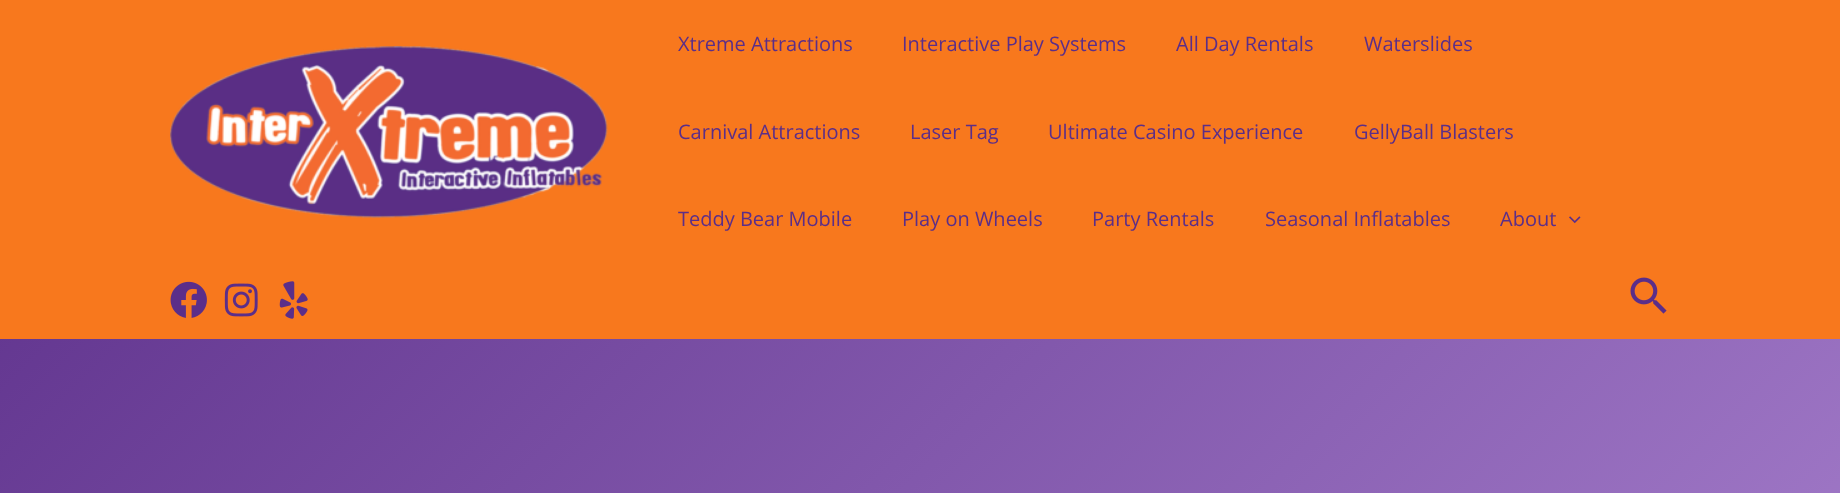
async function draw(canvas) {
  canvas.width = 1840
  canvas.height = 493
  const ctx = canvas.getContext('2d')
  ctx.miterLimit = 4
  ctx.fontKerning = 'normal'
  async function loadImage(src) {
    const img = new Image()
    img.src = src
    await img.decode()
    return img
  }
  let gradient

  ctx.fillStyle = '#fff'
  ctx.fillRect(0, 0, 1840, 493)
  gradient = ctx.createLinearGradient(-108, 108, 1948, 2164)
  gradient.addColorStop(0, '#5b2e89')
  gradient.addColorStop(1, '#ceaaf0')
  ctx.fillStyle = gradient
  ctx.fillRect(0, 339, 1840, 154)
  ctx.fillStyle = '#f8781d'
  ctx.fillRect(0, 0, 1840, 339)
  ctx.drawImage(await loadImage('image0.png'), 170, 281, 37, 37)
  ctx.drawImage(await loadImage('image1.png'), 224, 283, 34, 34)
  ctx.drawImage(await loadImage('image2.png'), 279, 281, 29, 38)
  ctx.drawImage(await loadImage('image3.png'), 1630, 277, 37, 37)
  ctx.drawImage(await loadImage('image4.png'), 170, 46, 438, 172)
  ctx.font = '20px Open Sans'
  ctx.fillStyle = '#5b2e89'
  ctx.fillText('Xtreme Attractions', 678, 51)
  ctx.fillText('Interactive Play Systems', 902, 51)
  ctx.fillText('All Day Rentals', 1176, 51)
  ctx.fillText('Waterslides', 1364, 51)
  ctx.fillText('Carnival Attractions', 678, 139)
  ctx.fillText('Laser Tag', 910, 139)
  ctx.fillText('Ultimate Casino Experience', 1048, 139)
  ctx.fillText('GellyBall Blasters', 1354, 139)
  ctx.fillText('Teddy Bear Mobile', 678, 226)
  ctx.fillText('Play on Wheels', 902, 226)
  ctx.fillText('Party Rentals', 1092, 226)
  ctx.fillText('Seasonal Inflatables', 1265, 226)
  ctx.fillText('About', 1500, 226)
  ctx.drawImage(await loadImage('image5.png'), 1569, 216, 12, 8)
}

draw(document.querySelector('canvas'))
